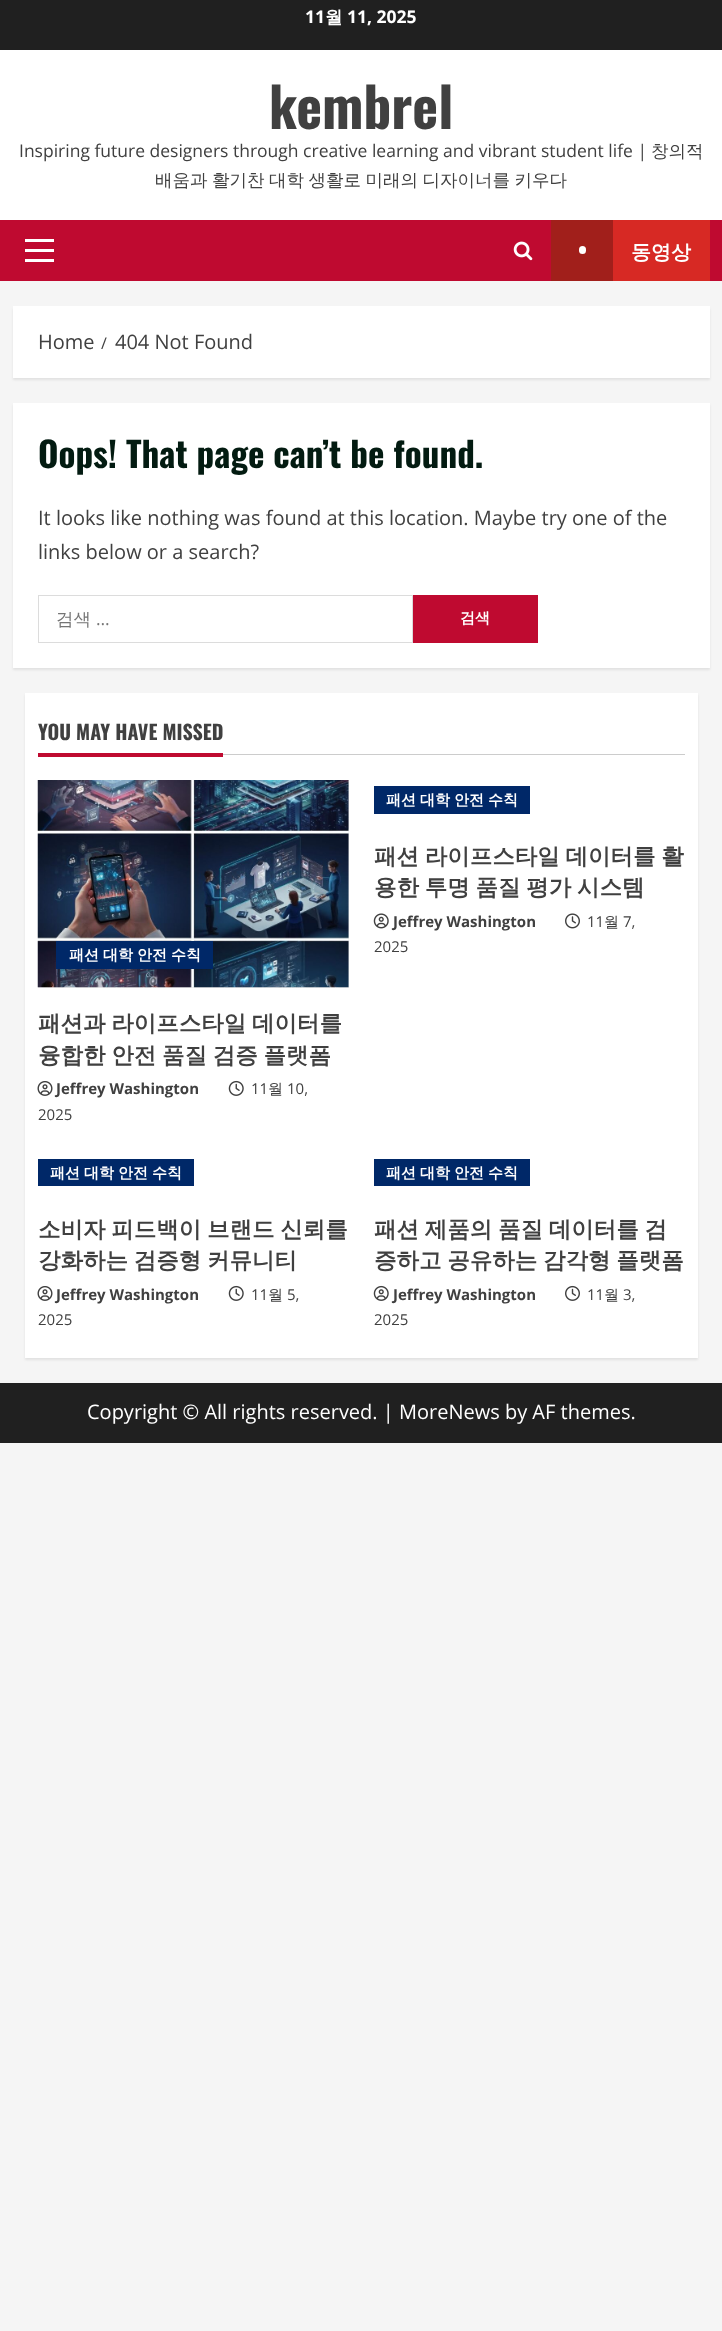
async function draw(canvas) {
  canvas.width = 722
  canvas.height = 2331
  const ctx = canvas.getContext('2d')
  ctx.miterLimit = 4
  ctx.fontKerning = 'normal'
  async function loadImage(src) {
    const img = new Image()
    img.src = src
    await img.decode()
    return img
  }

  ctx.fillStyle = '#f5f5f5'
  ctx.fillRect(0, 0, 722, 2331)
  ctx.fillStyle = '#202020'
  ctx.fillRect(0, 0, 722, 50)
  ctx.font = 'bold 17.5px Open Sans'
  ctx.fillStyle = '#fff'
  ctx.fillText('11', 305, 23)
  ctx.font = 'bold 17.5px WenQuanYi Zen Hei'
  ctx.fillText('월', 325, 23)
  ctx.font = 'bold 17.5px Open Sans'
  ctx.fillText('11, 2025', 347, 23)
  ctx.fillRect(0, 50, 722, 170)
  ctx.font = 'bold 55px Oswald'
  ctx.fillStyle = '#404040'
  ctx.fillText('kembrel', 269, 129)
  ctx.font = '17.5px Open Sans'
  ctx.fillText('Inspiring future designers through creative learning and vibrant student life |', 19, 157)
  ctx.font = '500 17.5px WenQuanYi Zen Hei'
  ctx.fillText('창의적', 651, 157)
  ctx.wordSpacing = '-0.75px'
  ctx.fillText('배움과 활기찬 대학 생활로 미래의 디자이너를 키우다', 155, 186)
  ctx.fillStyle = '#bf0a30'
  ctx.fillRect(0, 220, 722, 61)
  ctx.fillStyle = '#fff'
  ctx.fillRect(25, 249, 29, 3)
  ctx.fillRect(25, 239, 29, 3)
  ctx.fillRect(25, 259, 29, 3)
  ctx.drawImage(await loadImage('image0.png'), 513, 241, 20, 20)
  ctx.fillStyle = '#d72924'
  ctx.fillRect(613, 220, 97, 61)
  ctx.fillStyle = '#a11f1b'
  ctx.fillRect(551, 220, 62, 61)
  ctx.fillStyle = '#fff'
  ctx.beginPath()
  ctx.roundRect(579, 246, 7, 8, 3.5)
  ctx.fill()
  ctx.wordSpacing = '0px'
  ctx.font = 'bold 20px WenQuanYi Zen Hei'
  ctx.fillText('동영상', 631, 259)
  ctx.fillStyle = '#00000014'
  ctx.filter = 'blur(1px)'
  ctx.beginPath()
  ctx.rect(13, 309, 697, 71)
  ctx.fill()
  ctx.filter = 'none'
  ctx.fillStyle = '#fff'
  ctx.fillRect(13, 306, 697, 72)
  ctx.font = '20px Open Sans'
  ctx.fillStyle = '#404040'
  ctx.fillText('Home', 38, 349)
  ctx.font = '16px Open Sans'
  ctx.fillText('/', 101, 349)
  ctx.font = '20px Open Sans'
  ctx.fillText('404 Not Found', 115, 349)
  ctx.fillStyle = '#00000014'
  ctx.filter = 'blur(1px)'
  ctx.beginPath()
  ctx.rect(13, 405, 697, 265)
  ctx.fill()
  ctx.filter = 'none'
  ctx.fillStyle = '#fff'
  ctx.fillRect(13, 403, 697, 265)
  ctx.font = 'bold 35px Oswald'
  ctx.fillStyle = '#031b11'
  ctx.fillText('Oops! That page can’t be found.', 38, 468)
  ctx.font = '20px Open Sans'
  ctx.fillStyle = '#404040'
  ctx.fillText('It looks like nothing was found at this location. Maybe try one of the', 38, 525)
  ctx.fillText('links below or a search?', 38, 559)
  ctx.strokeStyle = '#dcdcdc'
  ctx.strokeRect(38.5, 595.5, 374, 47)
  ctx.font = '500 17.5px WenQuanYi Zen Hei'
  ctx.fillStyle = '#757575'
  ctx.fillText('검색', 56, 625)
  ctx.font = '17.5px Open Sans'
  ctx.fillText('…', 96, 625)
  ctx.fillStyle = '#bf0a30'
  ctx.fillRect(413, 595, 125, 48)
  ctx.font = 'bold 15px WenQuanYi Zen Hei'
  ctx.fillStyle = '#fff'
  ctx.fillText('검색', 460, 623)
  ctx.fillStyle = '#00000014'
  ctx.filter = 'blur(1px)'
  ctx.beginPath()
  ctx.rect(25, 695, 673, 665)
  ctx.fill()
  ctx.filter = 'none'
  ctx.fillStyle = '#fff'
  ctx.fillRect(25, 693, 673, 665)
  ctx.fillStyle = '#ccc'
  ctx.fillRect(223, 754, 462, 1)
  ctx.font = 'bold 20px Oswald'
  ctx.fillStyle = '#404040'
  ctx.fillText('YOU MAY HAVE MISSED', 38, 740)
  ctx.fillStyle = '#bf0a30'
  ctx.fillRect(38, 753, 185, 4)
  ctx.fillStyle = '#002868'
  ctx.fillRect(374, 786, 156, 28)
  ctx.wordSpacing = '-0.5px'
  ctx.font = 'bold 15px WenQuanYi Zen Hei'
  ctx.fillStyle = '#fff'
  ctx.fillText('패션 대학 안전 수칙', 386, 805)
  ctx.wordSpacing = '-1px'
  ctx.font = 'bold 22.5px WenQuanYi Zen Hei'
  ctx.fillStyle = '#404040'
  ctx.fillText('패션 라이프스타일 데이터를 활', 374, 864)
  ctx.fillText('용한 투명 품질 평가 시스템', 374, 895)
  ctx.drawImage(await loadImage('image1.png'), 373, 913, 16, 16)
  ctx.wordSpacing = '0px'
  ctx.font = 'bold 15px Open Sans'
  ctx.fillText('Jeffrey Washington', 393, 927)
  ctx.drawImage(await loadImage('image2.png'), 565, 913, 15, 16)
  ctx.font = '15px Open Sans'
  ctx.fillText('11', 587, 927)
  ctx.font = '500 15px WenQuanYi Zen Hei'
  ctx.fillText('월', 604, 927)
  ctx.font = '15px Open Sans'
  ctx.fillText('7,', 623, 927)
  ctx.fillText('2025', 374, 952)
  ctx.fillStyle = '#ececec'
  ctx.fillRect(38, 780, 311, 208)
  ctx.drawImage(await loadImage('image3.png'), 37, 780, 312, 208)
  ctx.fillStyle = '#002868'
  ctx.fillRect(56, 941, 157, 28)
  ctx.wordSpacing = '-0.5px'
  ctx.font = 'bold 15px WenQuanYi Zen Hei'
  ctx.fillStyle = '#fff'
  ctx.fillText('패션 대학 안전 수칙', 69, 960)
  ctx.wordSpacing = '-1px'
  ctx.font = 'bold 22.5px WenQuanYi Zen Hei'
  ctx.fillStyle = '#404040'
  ctx.fillText('패션과 라이프스타일 데이터를', 38, 1031)
  ctx.fillText('융합한 안전 품질 검증 플랫폼', 38, 1063)
  ctx.drawImage(await loadImage('image4.png'), 37, 1081, 16, 15)
  ctx.wordSpacing = '0px'
  ctx.font = 'bold 15px Open Sans'
  ctx.fillText('Jeffrey Washington', 56, 1094)
  ctx.drawImage(await loadImage('image5.png'), 228, 1080, 16, 16)
  ctx.font = '15px Open Sans'
  ctx.fillText('11', 251, 1094)
  ctx.font = '500 15px WenQuanYi Zen Hei'
  ctx.fillText('월', 268, 1094)
  ctx.font = '15px Open Sans'
  ctx.fillText('10,', 287, 1094)
  ctx.fillText('2025', 38, 1120)
  ctx.fillStyle = '#002868'
  ctx.fillRect(38, 1159, 156, 27)
  ctx.wordSpacing = '-0.5px'
  ctx.font = 'bold 15px WenQuanYi Zen Hei'
  ctx.fillStyle = '#fff'
  ctx.fillText('패션 대학 안전 수칙', 50, 1178)
  ctx.wordSpacing = '-1px'
  ctx.font = 'bold 22.5px WenQuanYi Zen Hei'
  ctx.fillStyle = '#404040'
  ctx.fillText('소비자 피드백이 브랜드 신뢰를', 38, 1237)
  ctx.fillText('강화하는 검증형 커뮤니티', 38, 1268)
  ctx.drawImage(await loadImage('image4.png'), 37, 1286, 16, 15)
  ctx.wordSpacing = '0px'
  ctx.font = 'bold 15px Open Sans'
  ctx.fillText('Jeffrey Washington', 56, 1300)
  ctx.drawImage(await loadImage('image5.png'), 228, 1285, 16, 16)
  ctx.font = '15px Open Sans'
  ctx.fillText('11', 251, 1300)
  ctx.font = '500 15px WenQuanYi Zen Hei'
  ctx.fillText('월', 268, 1300)
  ctx.font = '15px Open Sans'
  ctx.fillText('5,', 287, 1300)
  ctx.fillText('2025', 38, 1325)
  ctx.fillStyle = '#002868'
  ctx.fillRect(374, 1159, 156, 27)
  ctx.wordSpacing = '-0.5px'
  ctx.font = 'bold 15px WenQuanYi Zen Hei'
  ctx.fillStyle = '#fff'
  ctx.fillText('패션 대학 안전 수칙', 386, 1178)
  ctx.wordSpacing = '-1px'
  ctx.font = 'bold 22.5px WenQuanYi Zen Hei'
  ctx.fillStyle = '#404040'
  ctx.fillText('패션 제품의 품질 데이터를 검', 374, 1237)
  ctx.fillText('증하고 공유하는 감각형 플랫폼', 374, 1268)
  ctx.drawImage(await loadImage('image6.png'), 373, 1285, 16, 16)
  ctx.wordSpacing = '0px'
  ctx.font = 'bold 15px Open Sans'
  ctx.fillText('Jeffrey Washington', 393, 1300)
  ctx.drawImage(await loadImage('image7.png'), 565, 1285, 15, 16)
  ctx.font = '15px Open Sans'
  ctx.fillText('11', 587, 1300)
  ctx.font = '500 15px WenQuanYi Zen Hei'
  ctx.fillText('월', 604, 1300)
  ctx.font = '15px Open Sans'
  ctx.fillText('3,', 623, 1300)
  ctx.fillText('2025', 374, 1325)
  ctx.fillStyle = '#202020'
  ctx.fillRect(0, 1383, 722, 60)
  ctx.font = '20px Open Sans'
  ctx.fillStyle = '#fff'
  ctx.fillText('Copyright © All rights reserved. | MoreNews by AF themes.', 87, 1419)
}

draw(document.querySelector('canvas'))
